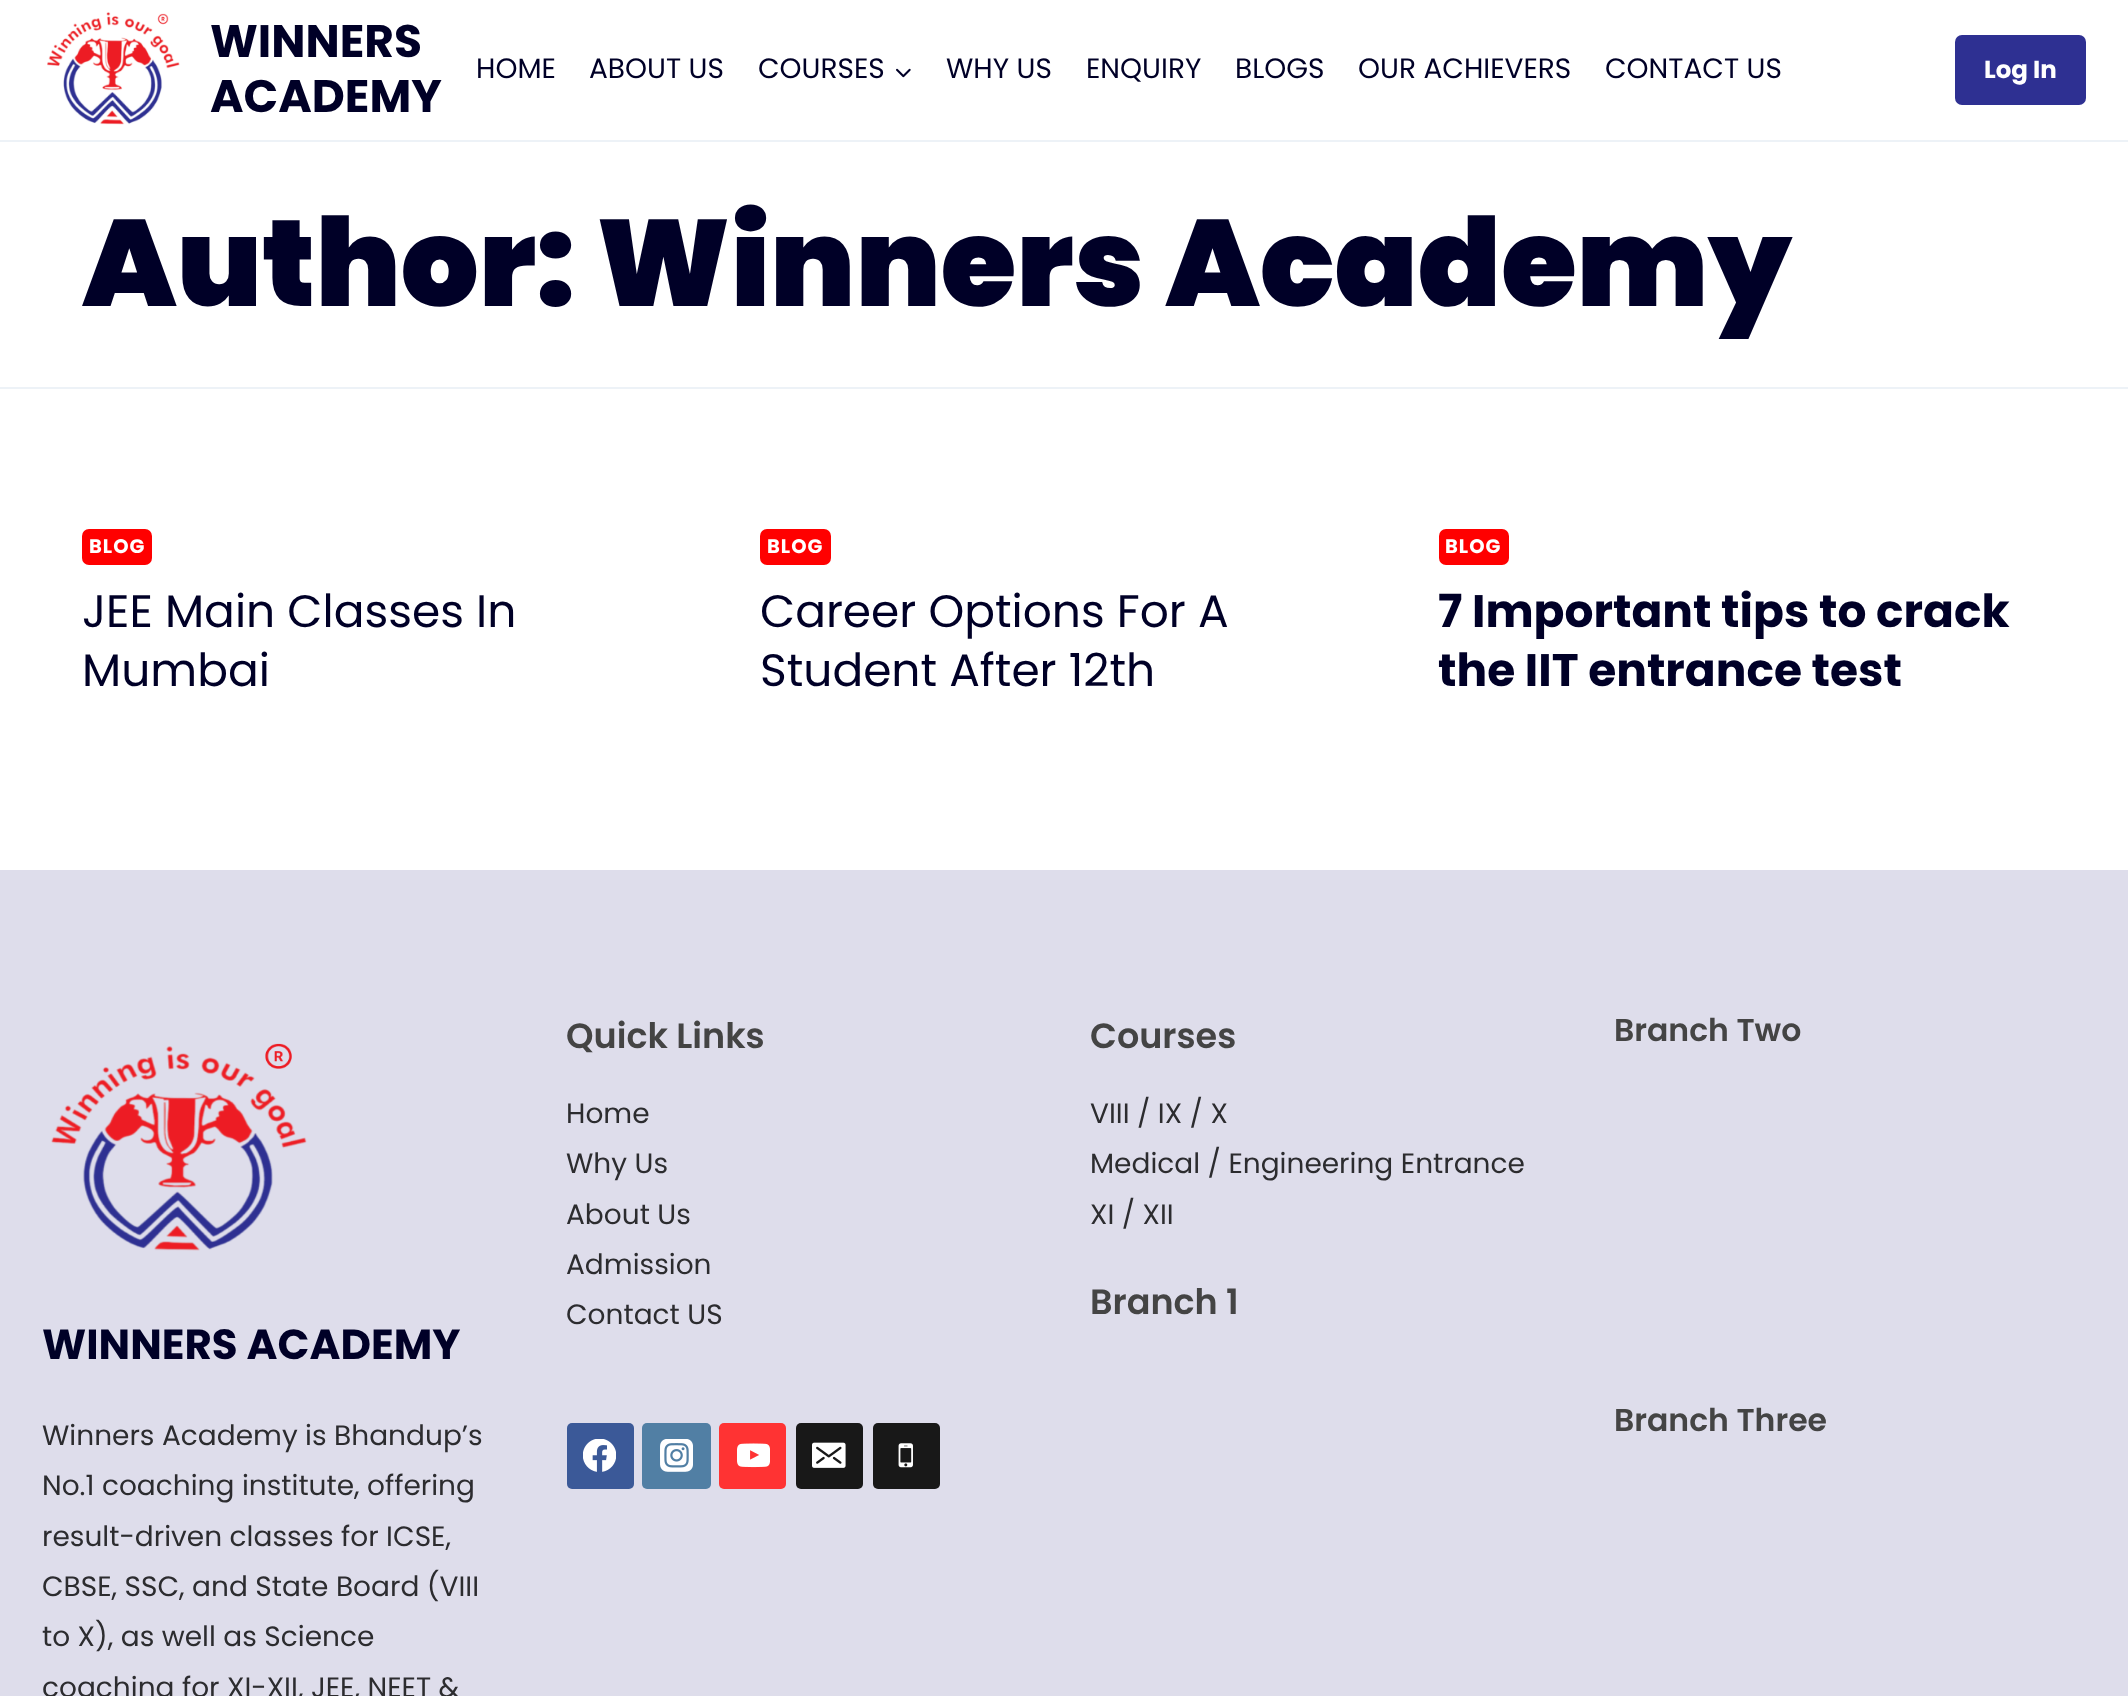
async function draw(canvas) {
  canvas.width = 2128
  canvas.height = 1696
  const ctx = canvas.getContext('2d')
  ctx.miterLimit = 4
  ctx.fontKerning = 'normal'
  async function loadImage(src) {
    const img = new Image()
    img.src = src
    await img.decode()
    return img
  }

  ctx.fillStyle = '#fff'
  ctx.fillRect(0, 0, 2128, 1696)
  ctx.fillStyle = '#edf2f7'
  ctx.fillRect(0, 140, 2128, 2)
  ctx.drawImage(await loadImage('image0.png'), 47, 12, 133, 113)
  ctx.font = 'bold 45.5px Poppins'
  ctx.fillStyle = '#000027'
  ctx.fillText('WINNERS', 210, 57)
  ctx.fillText('ACADEMY', 210, 112)
  ctx.font = '28px Poppins'
  ctx.fillText('HOME', 476, 78)
  ctx.fillText('ABOUT US', 589, 78)
  ctx.fillText('COURSES', 758, 78)
  ctx.drawImage(await loadImage('image1.png'), 896, 68, 15, 10)
  ctx.fillText('WHY US', 946, 78)
  ctx.fillText('ENQUIRY', 1086, 78)
  ctx.fillText('BLOGS', 1235, 78)
  ctx.fillText('OUR ACHIEVERS', 1358, 78)
  ctx.fillText('CONTACT US', 1605, 78)
  ctx.fillStyle = '#2e3092'
  ctx.beginPath()
  ctx.roundRect(1955, 35, 131, 70, 7)
  ctx.fill()
  ctx.font = 'bold 24.5px Poppins'
  ctx.fillStyle = '#fff'
  ctx.fillText('Log In', 1984, 78)
  ctx.fillStyle = '#edf2f7'
  ctx.fillRect(0, 387, 2128, 2)
  ctx.font = '900 122.5px Poppins'
  ctx.fillStyle = '#000027'
  ctx.fillText('Author: Winners Academy', 82, 306)
  ctx.fillStyle = '#f00'
  ctx.beginPath()
  ctx.roundRect(82, 529, 70, 36, 7)
  ctx.fill()
  ctx.letterSpacing = '1px'
  ctx.font = 'bold 19.5px Poppins'
  ctx.fillStyle = '#fff'
  ctx.fillText('BLOG', 89, 553)
  ctx.letterSpacing = '0px'
  ctx.font = '45.5px Poppins'
  ctx.fillStyle = '#000027'
  ctx.fillText('JEE Main Classes In', 82, 627)
  ctx.fillText('Mumbai', 82, 686)
  ctx.fillStyle = '#f00'
  ctx.beginPath()
  ctx.roundRect(760, 529, 71, 36, 7)
  ctx.fill()
  ctx.letterSpacing = '1px'
  ctx.font = 'bold 19.5px Poppins'
  ctx.fillStyle = '#fff'
  ctx.fillText('BLOG', 767, 553)
  ctx.letterSpacing = '0px'
  ctx.font = '45.5px Poppins'
  ctx.fillStyle = '#000027'
  ctx.fillText('Career Options For A', 760, 627)
  ctx.fillText('Student After 12th', 760, 686)
  ctx.fillStyle = '#f00'
  ctx.beginPath()
  ctx.roundRect(1439, 529, 70, 36, 7)
  ctx.fill()
  ctx.letterSpacing = '1px'
  ctx.font = 'bold 19.5px Poppins'
  ctx.fillStyle = '#fff'
  ctx.fillText('BLOG', 1445, 553)
  ctx.letterSpacing = '0px'
  ctx.font = 'bold 45.5px Poppins'
  ctx.fillStyle = '#000027'
  ctx.fillText('7 Important tips to crack', 1438, 627)
  ctx.fillText('the IIT entrance test', 1438, 686)
  ctx.fillStyle = '#deddeb'
  ctx.fillRect(0, 870, 2128, 826)
  ctx.font = '600 35px Poppins'
  ctx.fillStyle = '#444'
  ctx.fillText('Quick Links', 566, 1048)
  ctx.font = '28px Poppins'
  ctx.fillStyle = '#2c2c2f'
  ctx.fillText('Home', 566, 1123)
  ctx.fillText('Why Us', 566, 1173)
  ctx.fillText('About Us', 566, 1224)
  ctx.fillText('Admission', 566, 1274)
  ctx.fillText('Contact US', 566, 1324)
  ctx.fillStyle = '#3b5998'
  ctx.beginPath()
  ctx.roundRect(567, 1423, 67, 66, 5)
  ctx.fill()
  ctx.drawImage(await loadImage('image2.png'), 583, 1439, 33, 33)
  ctx.fillStyle = '#517fa4'
  ctx.beginPath()
  ctx.roundRect(642, 1423, 69, 66, 5)
  ctx.fill()
  ctx.drawImage(await loadImage('image3.png'), 660, 1439, 33, 33)
  ctx.fillStyle = '#f33'
  ctx.beginPath()
  ctx.roundRect(719, 1423, 67, 66, 5)
  ctx.fill()
  ctx.drawImage(await loadImage('image4.png'), 737, 1443, 33, 25)
  ctx.fillStyle = '#181818'
  ctx.beginPath()
  ctx.roundRect(796, 1423, 67, 66, 5)
  ctx.fill()
  ctx.drawImage(await loadImage('image5.png'), 812, 1442, 34, 26)
  ctx.beginPath()
  ctx.roundRect(873, 1423, 67, 66, 5)
  ctx.fill()
  ctx.drawImage(await loadImage('image6.png'), 898, 1443, 15, 25)
  ctx.font = '600 35px Poppins'
  ctx.fillStyle = '#444'
  ctx.fillText('Courses', 1090, 1048)
  ctx.font = '28px Poppins'
  ctx.fillStyle = '#2c2c2f'
  ctx.fillText('VIII / IX / X', 1090, 1123)
  ctx.fillText('Medical / Engineering Entrance', 1090, 1173)
  ctx.fillText('XI / XII', 1090, 1224)
  ctx.font = '600 35px Poppins'
  ctx.fillStyle = '#444'
  ctx.fillText('Branch 1', 1090, 1314)
  ctx.font = '600 31.5px Poppins'
  ctx.fillText('Branch Two', 1614, 1041)
  ctx.fillText('Branch Three', 1614, 1431)
  ctx.drawImage(await loadImage('image7.png'), 51, 1043, 256, 208)
  ctx.font = 'bold 42px Poppins'
  ctx.fillStyle = '#000027'
  ctx.fillText('WINNERS ACADEMY', 42, 1359)
  ctx.font = '28px Poppins'
  ctx.fillStyle = '#2c2c2f'
  ctx.fillText('Winners Academy is Bhandup’s', 42, 1445)
  ctx.fillText('No.1 coaching institute, offering', 42, 1495)
  ctx.fillText('result-driven classes for ICSE,', 42, 1546)
  ctx.fillText('CBSE, SSC, and State Board (VIII', 42, 1596)
  ctx.fillText('to X), as well as Science', 42, 1646)
  ctx.fillText('coaching for XI-XII, JEE, NEET &', 42, 1697)
}

draw(document.querySelector('canvas'))
